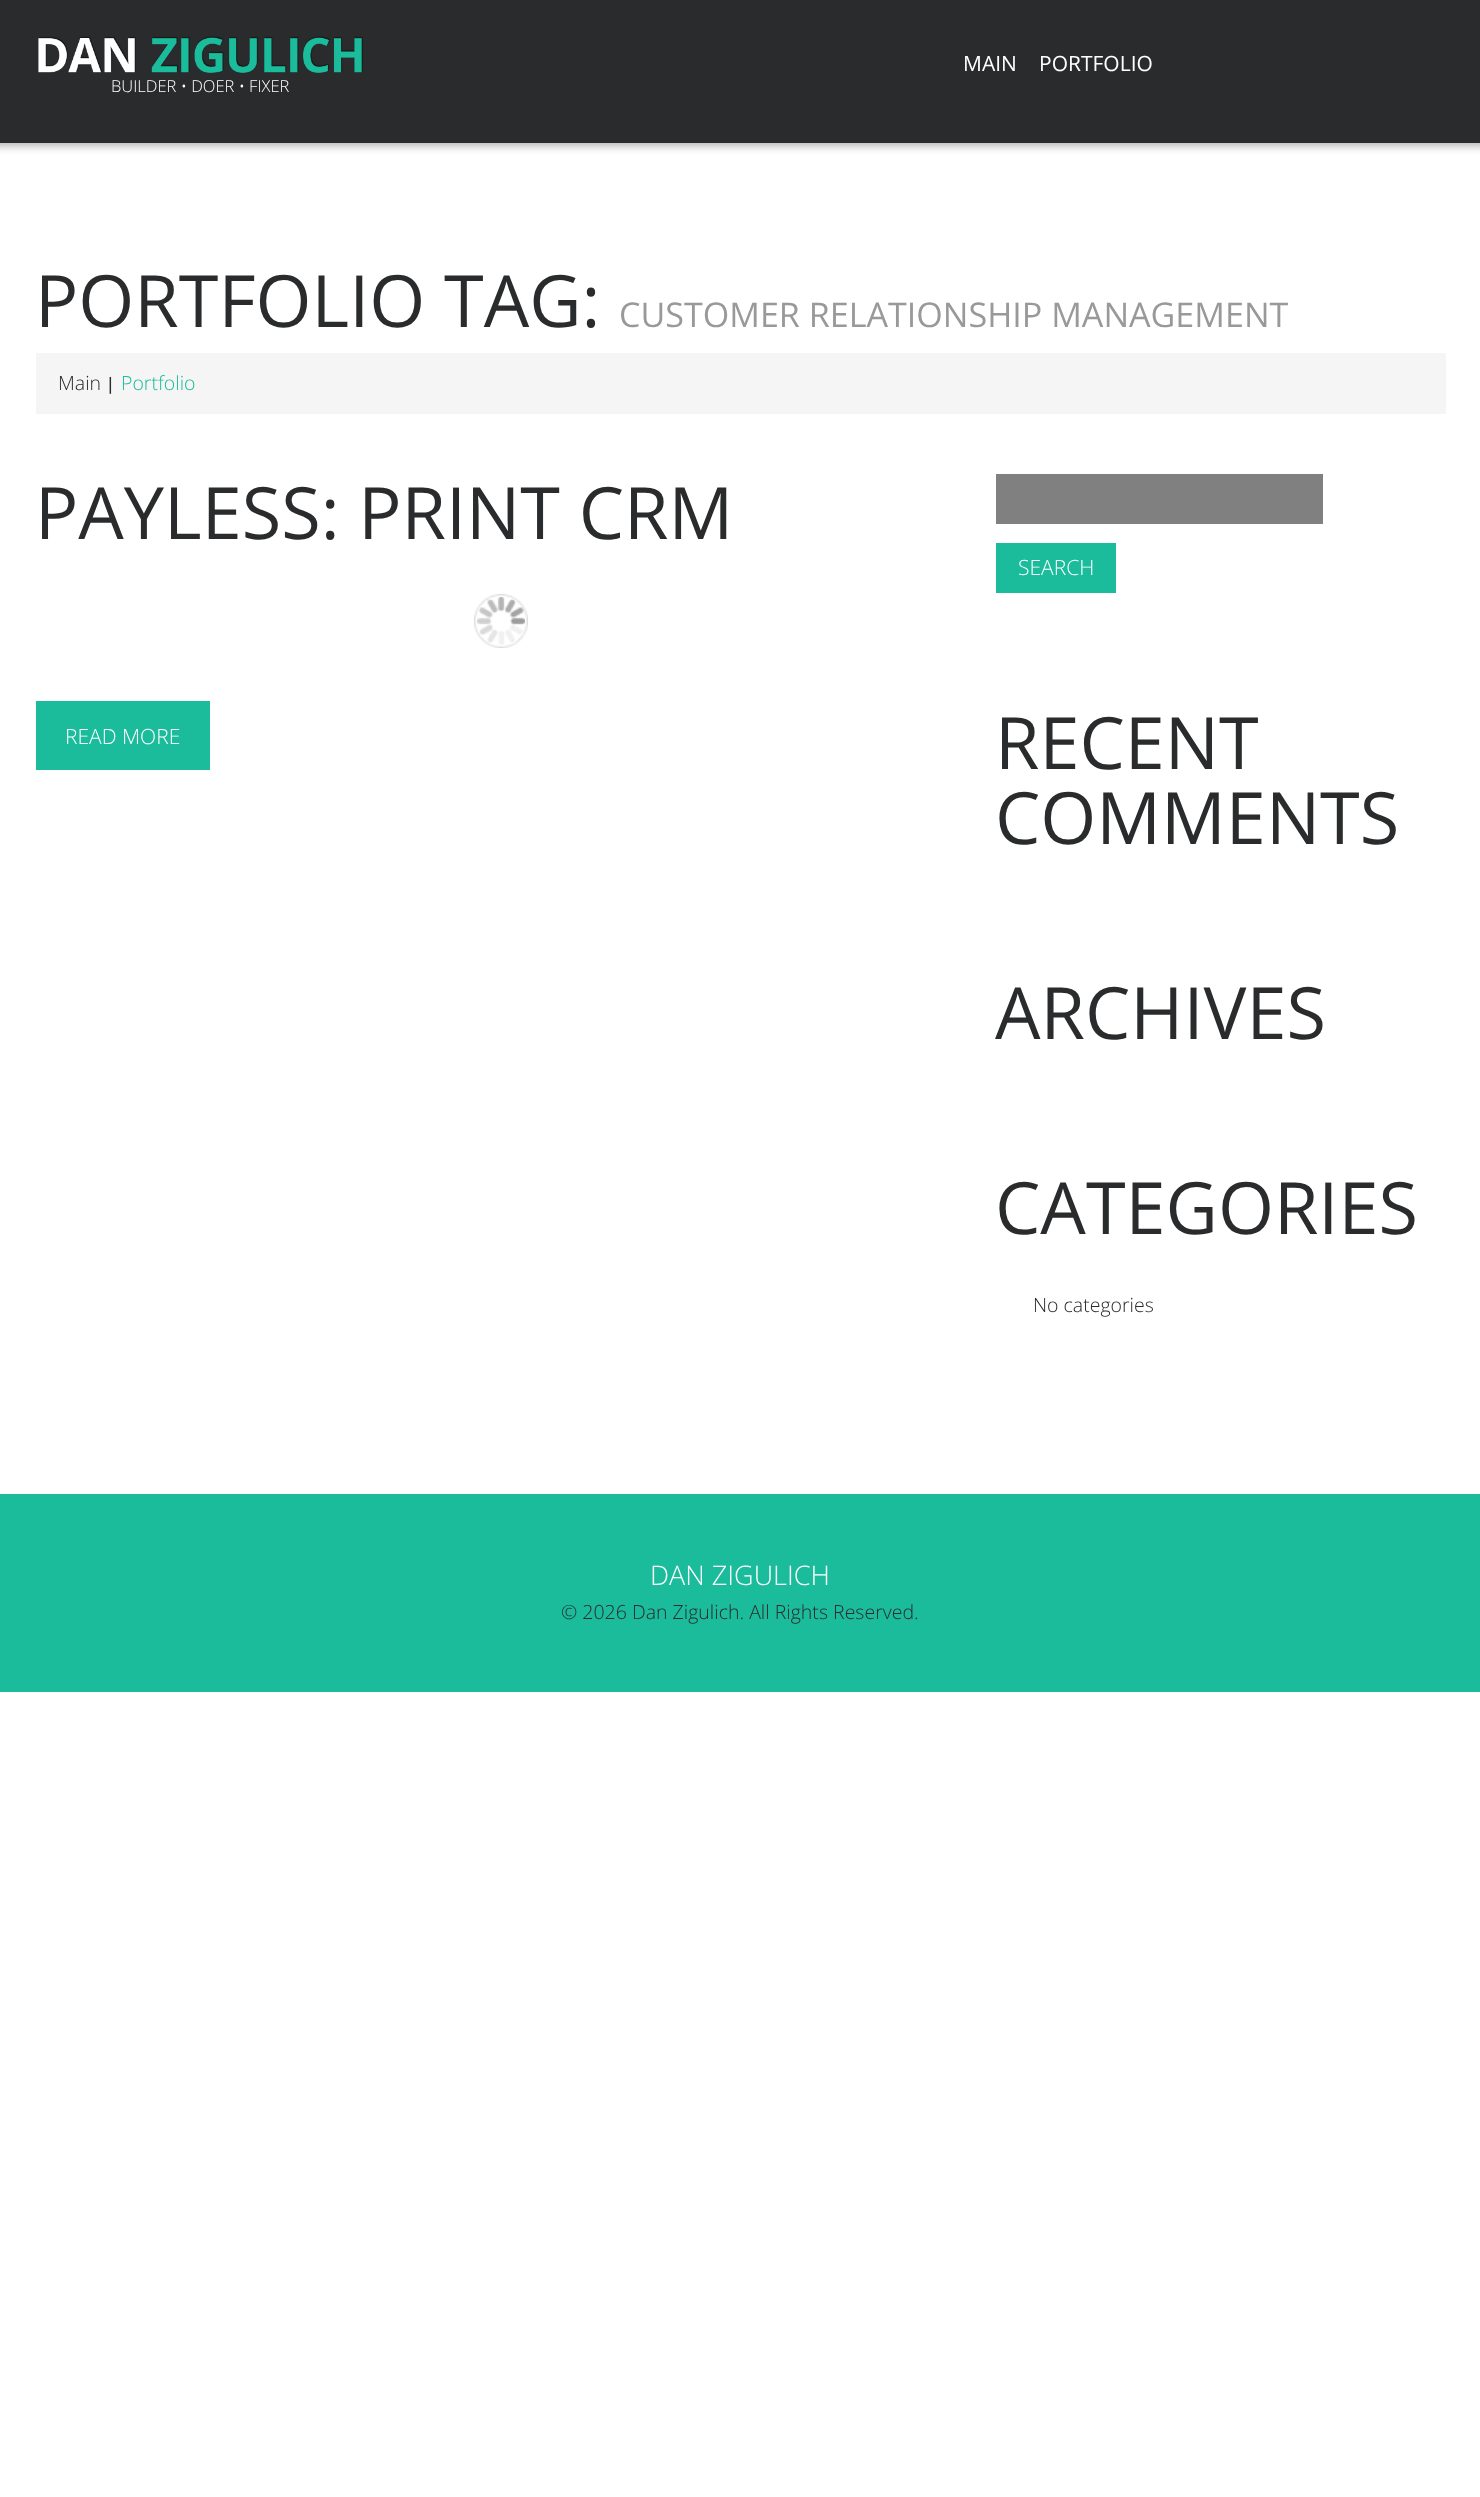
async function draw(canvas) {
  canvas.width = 1480
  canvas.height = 2497
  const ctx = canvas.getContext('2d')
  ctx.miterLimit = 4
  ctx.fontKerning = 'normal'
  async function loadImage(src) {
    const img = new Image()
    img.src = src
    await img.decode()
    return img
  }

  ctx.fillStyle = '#fff'
  ctx.fillRect(0, 0, 1480, 2497)
  ctx.fillStyle = '#0000004d'
  ctx.filter = 'blur(4px)'
  ctx.beginPath()
  ctx.rect(-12, 3, 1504, 143)
  ctx.fill()
  ctx.filter = 'none'
  ctx.fillStyle = '#2a2b2c'
  ctx.fillRect(0, 0, 1480, 143)
  ctx.font = '21px Open Sans'
  ctx.fillStyle = '#fff'
  ctx.fillText('MAIN', 963, 71)
  ctx.fillText('PORTFOLIO', 1039, 71)
  ctx.drawImage(await loadImage('image0.png'), 38, 36, 325, 37)
  ctx.font = '300 16.5px Open Sans'
  ctx.fillText('BUILDER • DOER • FIXER', 111, 92)
  ctx.font = '72px Open Sans'
  ctx.fillStyle = '#2a2b2c'
  ctx.fillText('PORTFOLIO TAG:', 35, 327)
  ctx.font = '34.1px Open Sans'
  ctx.fillStyle = '#999'
  ctx.fillText('CUSTOMER RELATIONSHIP MANAGEMENT', 619, 327)
  ctx.fillStyle = '#f5f5f5'
  ctx.fillRect(36, 353, 1410, 61)
  ctx.font = '300 19.5px Open Sans'
  ctx.fillStyle = '#2a2b2c'
  ctx.fillText('Main', 58, 390)
  ctx.font = '18px Liberation Sans'
  ctx.fillText('|', 108, 390)
  ctx.font = '300 19.5px Open Sans'
  ctx.fillStyle = '#1abc9c'
  ctx.fillText('Portfolio', 121, 390)
  ctx.font = '72px Open Sans'
  ctx.fillStyle = '#2a2b2c'
  ctx.fillText('PAYLESS: PRINT CRM', 35, 539)
  ctx.drawImage(await loadImage('image1.png'), 474, 594, 54, 54)
  ctx.fillStyle = '#1abc9c'
  ctx.fillRect(36, 701, 174, 69)
  ctx.font = '300 21px Open Sans'
  ctx.fillStyle = '#fff'
  ctx.fillText('READ MORE', 65, 744)
  ctx.fillStyle = '#808080'
  ctx.fillRect(996, 474, 327, 50)
  ctx.fillStyle = '#1abc9c'
  ctx.fillRect(996, 543, 120, 50)
  ctx.fillStyle = '#fff'
  ctx.fillText('SEARCH', 1018, 575)
  ctx.font = '72px Open Sans'
  ctx.fillStyle = '#2a2b2c'
  ctx.fillText('RECENT', 995, 769)
  ctx.fillText('COMMENTS', 995, 844)
  ctx.fillText('ARCHIVES', 995, 1039)
  ctx.fillText('CATEGORIES', 995, 1234)
  ctx.font = '300 19.5px Open Sans'
  ctx.fillText('No categories', 1033, 1312)
  ctx.fillStyle = '#1abc9c'
  ctx.fillRect(0, 1494, 1480, 198)
  ctx.font = '300 27px Open Sans'
  ctx.fillStyle = '#fff'
  ctx.fillText('DAN ZIGULICH', 650, 1585)
  ctx.font = '300 19.5px Open Sans'
  ctx.fillStyle = '#2a2b2c'
  ctx.fillText('© 2026 Dan Zigulich. All Rights Reserved.', 561, 1619)
}

draw(document.querySelector('canvas'))
